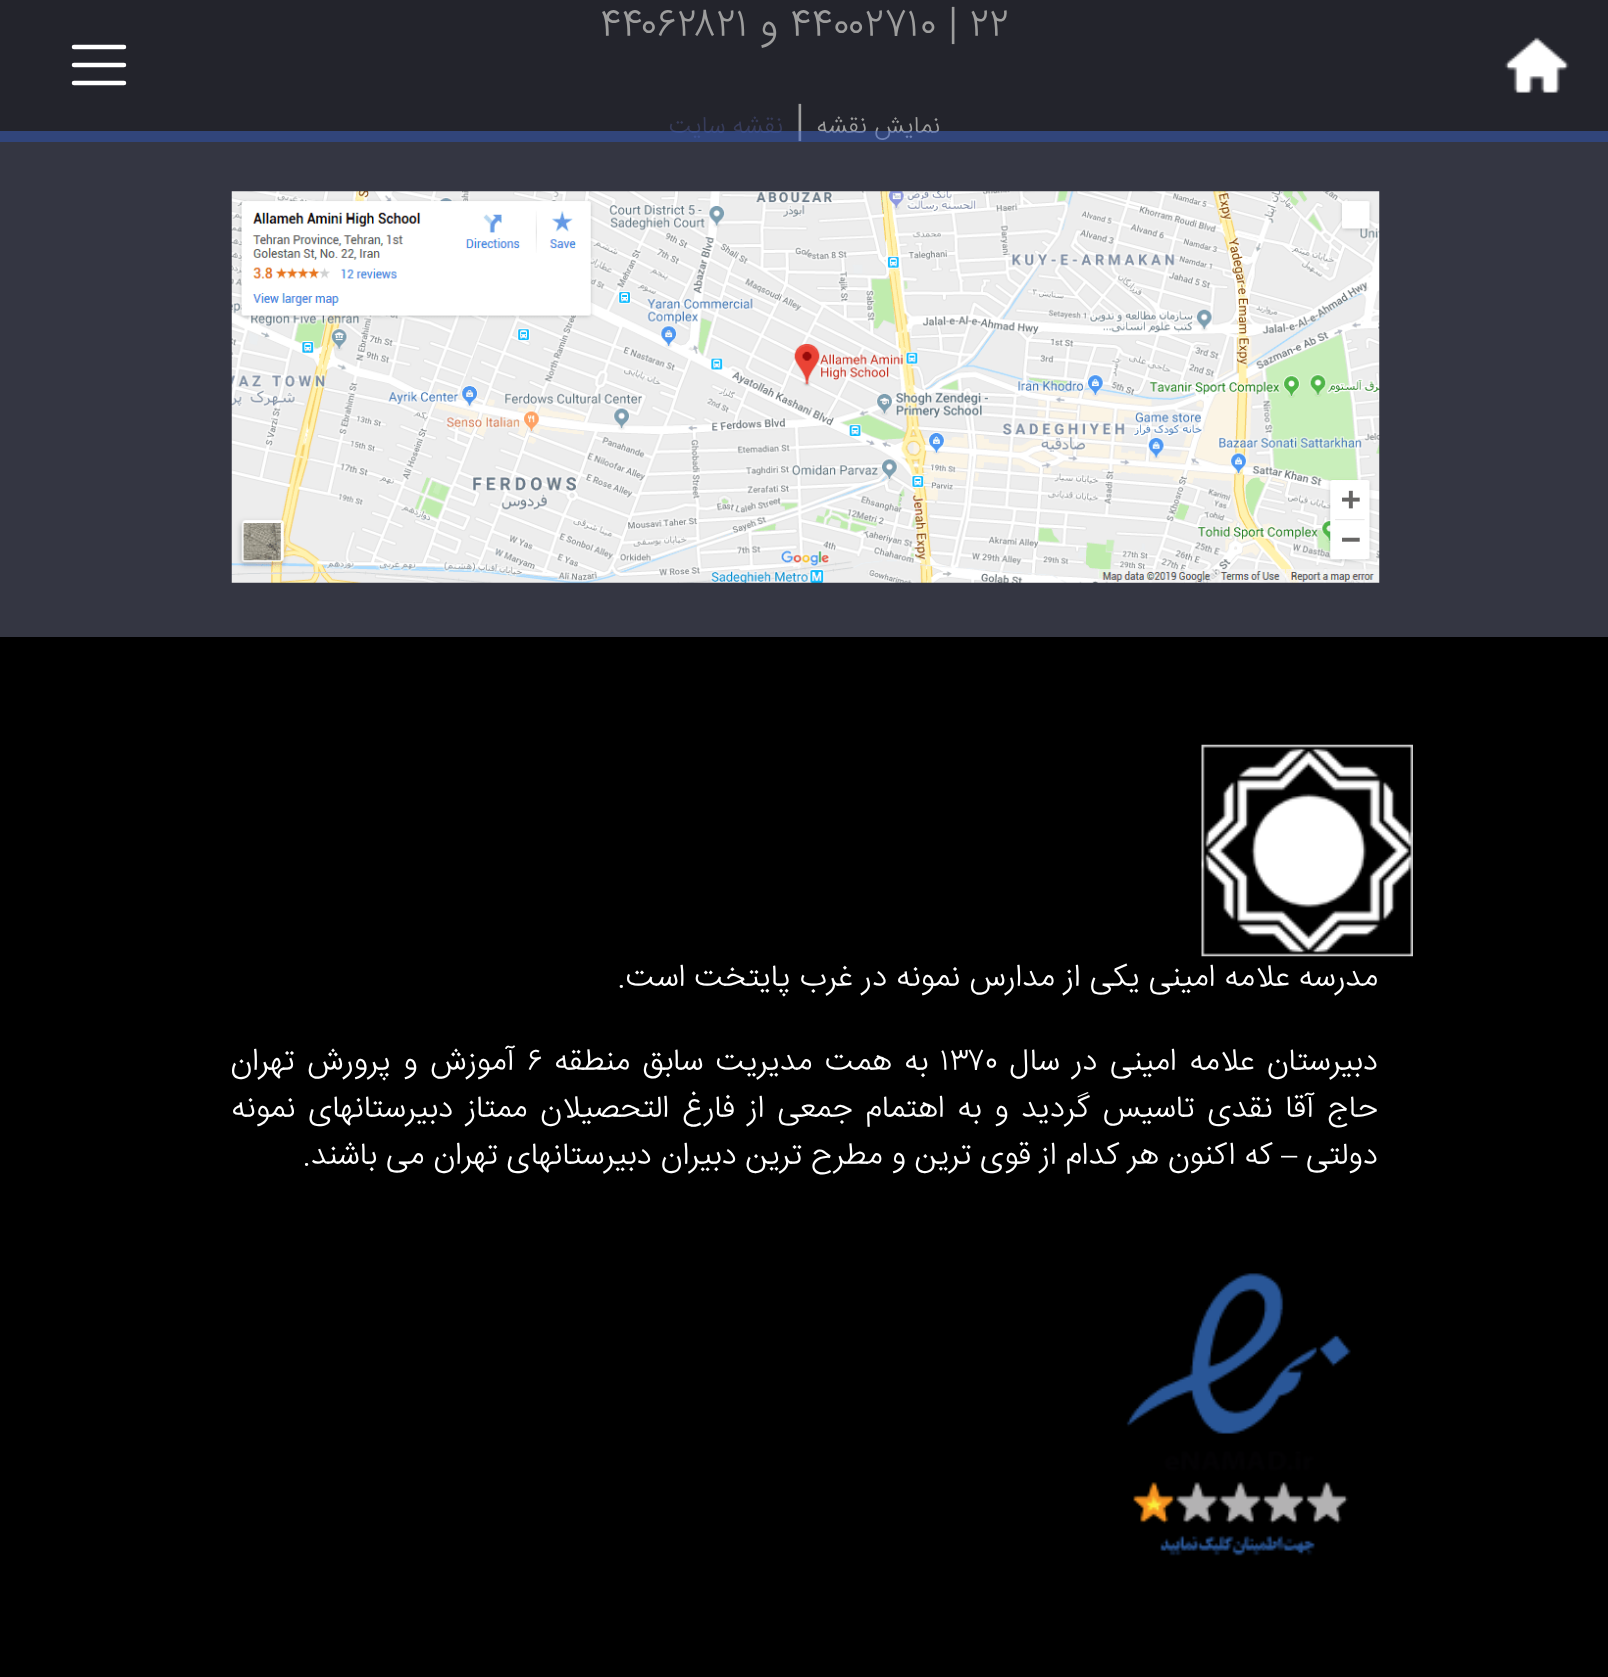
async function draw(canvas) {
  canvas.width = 1608
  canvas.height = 1677
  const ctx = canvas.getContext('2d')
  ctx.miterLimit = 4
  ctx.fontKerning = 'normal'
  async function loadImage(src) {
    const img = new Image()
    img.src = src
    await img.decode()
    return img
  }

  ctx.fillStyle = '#343642'
  ctx.fillRect(0, 0, 1608, 1677)
  ctx.fillStyle = '#23242c'
  ctx.fillRect(0, 0, 1608, 142)
  ctx.font = '300 40.5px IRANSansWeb'
  ctx.fillStyle = '#9d9d9d'
  ctx.fillText('۴۴۰۰۲۷۱۰ | ۲۲', 790, 36)
  ctx.direction = 'rtl'
  ctx.fillText('و', 778, 36)
  ctx.direction = 'ltr'
  ctx.fillText('۴۴۰۶۲۸۲۱', 600, 36)
  ctx.direction = 'rtl'
  ctx.font = '300 24.75px IRANSansWeb'
  ctx.fillText('نمايش نقشه', 940, 133)
  ctx.direction = 'ltr'
  ctx.font = '300 40.5px IRANSansWeb'
  ctx.fillText('|', 795, 133)
  ctx.direction = 'rtl'
  ctx.font = '300 24.75px IRANSansWeb'
  ctx.fillStyle = '#373c5a'
  ctx.fillText('نقشه سايت', 783, 133)
  ctx.drawImage(await loadImage('image0.png'), 231, 191, 1149, 392)
  ctx.fillStyle = '#000'
  ctx.fillRect(0, 637, 1608, 1040)
  ctx.drawImage(await loadImage('image1.png'), 1201, 744, 212, 213)
  ctx.font = '300 31.5px IRANSansWeb'
  ctx.fillStyle = '#fff'
  ctx.fillText('مدرسه علامه امینی یکی از مدارس نمونه در غرب پایتخت است.', 1378, 986)
  ctx.wordSpacing = '3.5px'
  ctx.fillText('دبيرستان علامه امينی در سال', 1378, 1070)
  ctx.wordSpacing = '0px'
  ctx.direction = 'ltr'
  ctx.fillText('۱۳۷۰', 940, 1070)
  ctx.wordSpacing = '3.5px'
  ctx.direction = 'rtl'
  ctx.fillText('به همت مديريت سابق منطقه', 928, 1070)
  ctx.wordSpacing = '0px'
  ctx.direction = 'ltr'
  ctx.fillText('۶', 527, 1070)
  ctx.wordSpacing = '3.5px'
  ctx.direction = 'rtl'
  ctx.fillText('آموزش و پرورش تهران', 515, 1070)
  ctx.wordSpacing = '3.9px'
  ctx.fillText('حاج آقا نقدی تاسيس گرديد و به اهتمام جمعی از فارغ التحصيلان ممتاز دبيرستانهای نمونه', 1378, 1117)
  ctx.wordSpacing = '0px'
  ctx.fillText('دولتی', 1378, 1164)
  ctx.font = '31.5px Liberation Serif'
  ctx.fillText('–', 1297, 1164)
  ctx.font = '300 31.5px IRANSansWeb'
  ctx.fillText('كه اكنون هر كدام از قوی ترين و مطرح ترين دبيران دبيرستانهای تهران می باشند.', 1272, 1164)
  ctx.drawImage(await loadImage('image2.png'), 1126, 1273, 225, 283)
  ctx.fillStyle = '#3f65ca80'
  ctx.fillRect(0, 131, 1608, 11)
  ctx.drawImage(await loadImage('image3.png'), 1504, 37, 65, 56)
  ctx.beginPath()
  ctx.moveTo(74, 47)
  ctx.lineTo(124, 47)
  ctx.moveTo(74, 65)
  ctx.lineTo(124, 65)
  ctx.moveTo(74, 83)
  ctx.lineTo(124, 83)
  ctx.strokeStyle = '#fff'
  ctx.lineWidth = 4.5
  ctx.lineCap = 'round'
  ctx.stroke()
}

draw(document.querySelector('canvas'))
